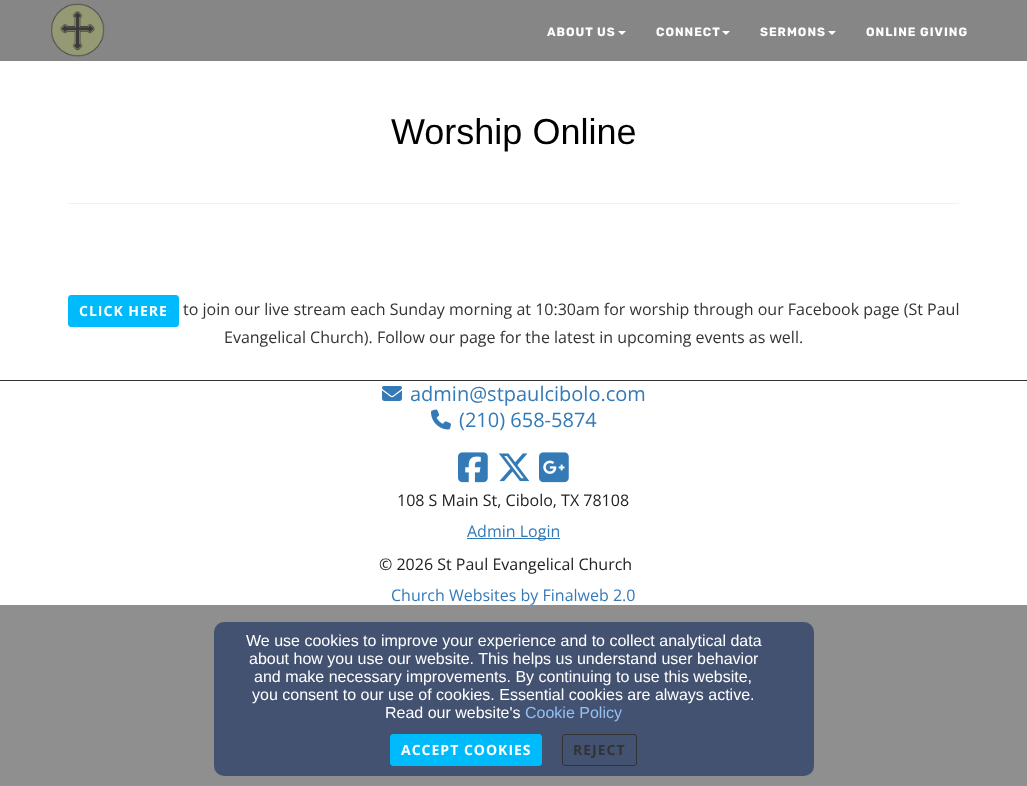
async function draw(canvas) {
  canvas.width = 1027
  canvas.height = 786
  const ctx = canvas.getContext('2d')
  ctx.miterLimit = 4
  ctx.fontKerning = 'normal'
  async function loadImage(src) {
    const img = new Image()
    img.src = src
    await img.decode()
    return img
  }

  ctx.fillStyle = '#8f8f8f'
  ctx.fillRect(0, 0, 1027, 786)
  ctx.fillStyle = '#868686'
  ctx.fillRect(0, 0, 1027, 61)
  ctx.drawImage(await loadImage('image0.png'), 51, 3, 54, 54)
  ctx.letterSpacing = '1px'
  ctx.font = 'bold 12px Rubik'
  ctx.fillStyle = '#fff'
  ctx.fillText('ABOUT US', 547, 36)
  ctx.beginPath()
  ctx.moveTo(618, 31)
  ctx.lineTo(626, 31)
  ctx.lineTo(622, 35)
  ctx.closePath()
  ctx.fill()
  ctx.fillText('CONNECT', 656, 36)
  ctx.beginPath()
  ctx.moveTo(722, 31)
  ctx.lineTo(730, 31)
  ctx.lineTo(726, 35)
  ctx.closePath()
  ctx.fill()
  ctx.fillText('SERMONS', 760, 36)
  ctx.beginPath()
  ctx.moveTo(828, 31)
  ctx.lineTo(836, 31)
  ctx.lineTo(832, 35)
  ctx.closePath()
  ctx.fill()
  ctx.fillText('ONLINE GIVING', 866, 36)
  ctx.fillRect(0, 61, 1027, 319)
  ctx.fillStyle = '#f1f1f2'
  ctx.fillRect(69, 203, 890, 1)
  ctx.letterSpacing = '0px'
  ctx.font = '36px Liberation Sans'
  ctx.fillStyle = '#000'
  ctx.fillText('Worship Online', 391, 144)
  ctx.fillStyle = '#00bbfc'
  ctx.beginPath()
  ctx.roundRect(68.5, 295.5, 110, 31, 2.5)
  ctx.fill()
  ctx.strokeStyle = '#00bbfc'
  ctx.stroke()
  ctx.letterSpacing = '1px'
  ctx.font = 'bold 14px Open Sans'
  ctx.fillStyle = '#fff'
  ctx.fillText('CLICK HERE', 79, 316)
  ctx.letterSpacing = '0px'
  ctx.font = '16px Open Sans'
  ctx.fillStyle = '#333'
  ctx.fillText('to join our live stream each Sunday morning at 10:30am for worship through our Facebook page (St Paul', 183, 315)
  ctx.fillText('Evangelical Church). Follow our page for the latest in upcoming events as well.', 224, 343)
  ctx.fillStyle = '#fff'
  ctx.fillRect(0, 381, 1027, 224)
  ctx.fillStyle = '#333'
  ctx.fillRect(0, 380, 1027, 1)
  ctx.drawImage(await loadImage('image1.png'), 382, 386, 20, 15)
  ctx.font = '20px Open Sans'
  ctx.fillStyle = '#337ab7'
  ctx.fillText('admin@stpaulcibolo.com', 410, 401)
  ctx.drawImage(await loadImage('image2.png'), 431, 409, 20, 21)
  ctx.fillText('(210) 658-5874', 459, 427)
  ctx.drawImage(await loadImage('image3.png'), 458, 452, 30, 31)
  ctx.drawImage(await loadImage('image4.png'), 498, 453, 32, 29)
  ctx.drawImage(await loadImage('image5.png'), 539, 452, 30, 31)
  ctx.font = '16px Open Sans'
  ctx.fillStyle = '#222'
  ctx.fillText('108 S Main St, Cibolo, TX 78108', 397, 506)
  ctx.fillStyle = '#337ab7'
  ctx.fillRect(467, 538, 93, 1)
  ctx.fillText('Admin Login', 467, 537)
  ctx.fillStyle = '#222'
  ctx.fillText('© 2026 St Paul Evangelical Church', 379, 570)
  ctx.fillStyle = '#337ab7'
  ctx.fillText('Church Websites by Finalweb 2.0', 391, 601)
  ctx.fillStyle = '#435270'
  ctx.beginPath()
  ctx.roundRect(214, 622, 600, 154, 10)
  ctx.fill()
  ctx.font = '16px Liberation Sans'
  ctx.fillStyle = '#fff'
  ctx.fillText('We use cookies to improve your experience and to collect analytical data', 246, 646)
  ctx.fillText('about how you use our website. This helps us understand user behavior', 249, 664)
  ctx.fillText('and make necessary improvements. By continuing to use this website,', 254, 682)
  ctx.fillText('you consent to our use of cookies. Essential cookies are always active.', 252, 700)
  ctx.fillText('Read our website\'s', 385, 718)
  ctx.fillStyle = '#94c0f3'
  ctx.fillText('Cookie Policy', 525, 718)
  ctx.fillStyle = '#00bbfc'
  ctx.beginPath()
  ctx.roundRect(390.5, 734.5, 151, 31, 2.5)
  ctx.fill()
  ctx.stroke()
  ctx.letterSpacing = '1px'
  ctx.font = 'bold 14px Open Sans'
  ctx.fillStyle = '#fff'
  ctx.fillText('ACCEPT COOKIES', 401, 755)
  ctx.beginPath()
  ctx.roundRect(562.5, 734.5, 74, 31, 2.5)
  ctx.strokeStyle = '#333'
  ctx.stroke()
  ctx.fillStyle = '#333'
  ctx.fillText('REJECT', 573, 755)
}

draw(document.querySelector('canvas'))
